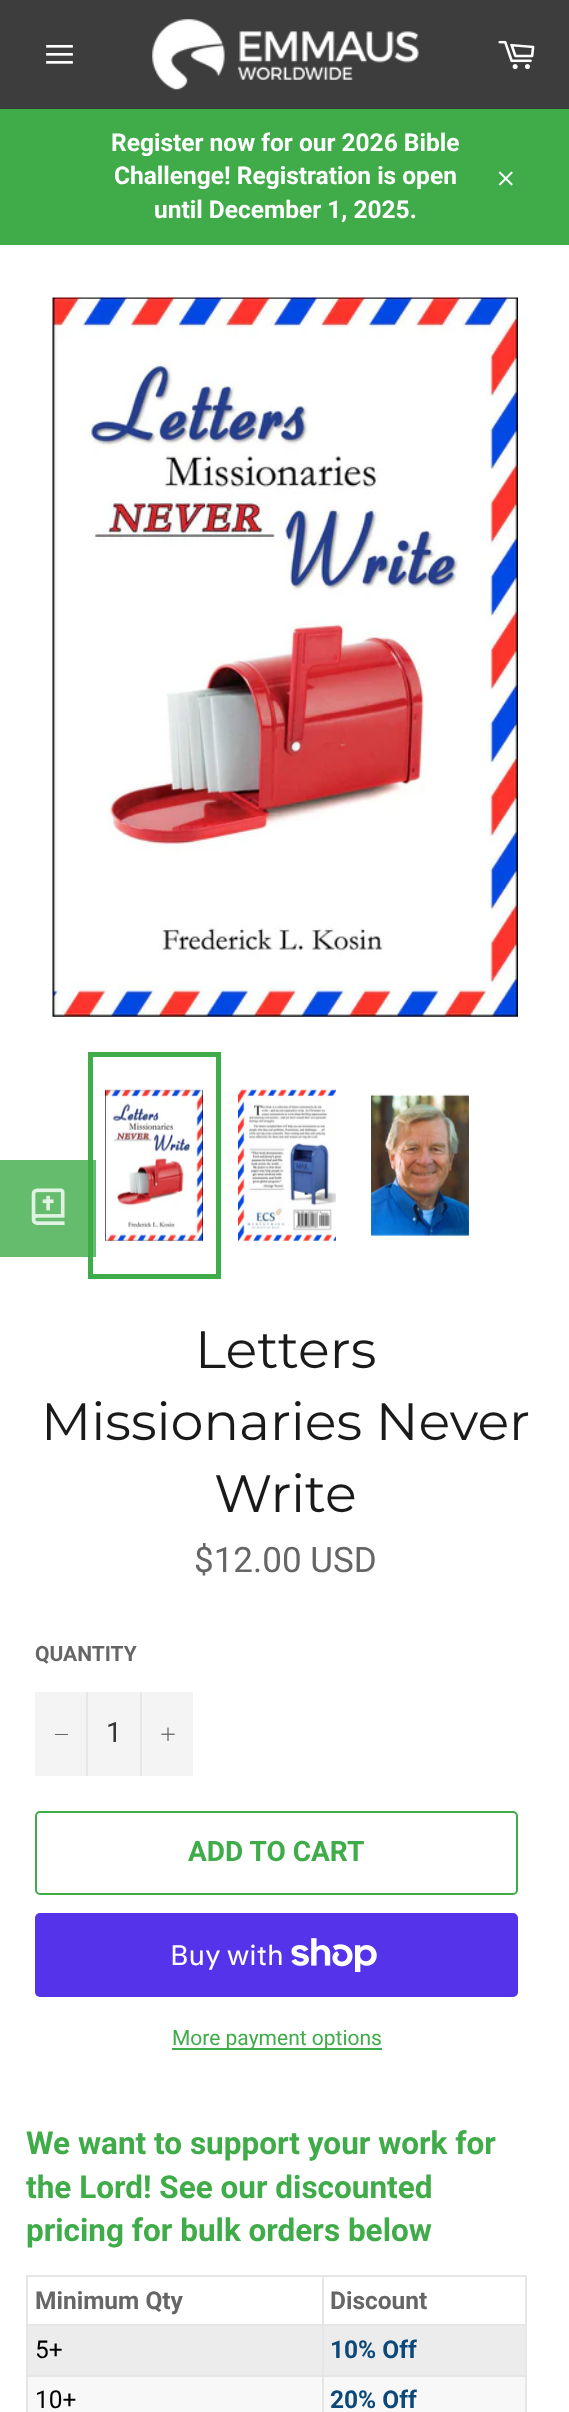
async function draw(canvas) {
  canvas.width = 569
  canvas.height = 2412
  const ctx = canvas.getContext('2d')
  ctx.miterLimit = 4
  ctx.fontKerning = 'normal'
  async function loadImage(src) {
    const img = new Image()
    img.src = src
    await img.decode()
    return img
  }

  ctx.fillStyle = '#fff'
  ctx.fillRect(0, 0, 569, 2412)
  ctx.fillStyle = '#3d3d3d'
  ctx.fillRect(0, 0, 569, 109)
  ctx.drawImage(await loadImage('image0.png'), 46, 44, 27, 20)
  ctx.drawImage(await loadImage('image1.png'), 152, 19, 267, 71)
  ctx.drawImage(await loadImage('image2.png'), 498, 40, 37, 30)
  ctx.fillStyle = '#3fab49'
  ctx.fillRect(0, 109, 569, 136)
  ctx.font = 'bold 24.5px Roboto'
  ctx.fillStyle = '#fff'
  ctx.fillText('Register now for our 2026 Bible', 111, 151)
  ctx.fillText('Challenge! Registration is open', 114, 184)
  ctx.fillText('until December 1, 2025.', 154, 218)
  ctx.drawImage(await loadImage('image3.png'), 498, 171, 15, 15)
  ctx.drawImage(await loadImage('image6.png'), 105, 1089, 98, 152)
  ctx.strokeStyle = '#3fab49'
  ctx.lineWidth = 5
  ctx.strokeRect(90.5, 1054.5, 128, 222)
  ctx.fillStyle = '#3fab49cc'
  ctx.fillRect(0, 1160, 96, 97)
  ctx.drawImage(await loadImage('image4.png'), 31, 1188, 34, 37)
  ctx.drawImage(await loadImage('image5.png'), 52, 297, 466, 720)
  ctx.drawImage(await loadImage('image7.png'), 238, 1089, 98, 152)
  ctx.drawImage(await loadImage('image8.png'), 371, 1094, 98, 142)
  ctx.font = '52.5px Montserrat'
  ctx.fillStyle = '#1a1a1a'
  ctx.fillText('Letters', 195, 1368)
  ctx.fillText('Missionaries Never', 41, 1440)
  ctx.fillText('Write', 214, 1512)
  ctx.font = '35px Roboto'
  ctx.fillStyle = '#666'
  ctx.fillText('$12.00 USD', 194, 1572)
  ctx.font = 'bold 21px Roboto'
  ctx.fillText('QUANTITY', 35, 1661)
  ctx.fillStyle = '#f4f4f4'
  ctx.fillRect(35, 1692, 158, 84)
  ctx.fillStyle = '#e7e7e7'
  ctx.fillRect(86, 1692, 2, 84)
  ctx.fillStyle = '#666'
  ctx.fillRect(55, 1734, 13, 1)
  ctx.font = '28px Roboto'
  ctx.fillStyle = '#333'
  ctx.fillText('1', 106, 1742)
  ctx.fillStyle = '#e7e7e7'
  ctx.fillRect(140, 1692, 2, 84)
  ctx.drawImage(await loadImage('image9.png'), 161, 1727, 14, 14)
  ctx.beginPath()
  ctx.roundRect(36, 1812, 481, 82, 4)
  ctx.lineWidth = 2
  ctx.stroke()
  ctx.font = 'bold 28px Roboto'
  ctx.fillStyle = '#3fab49'
  ctx.fillText('ADD TO CART', 188, 1861)
  ctx.fillStyle = '#5433eb'
  ctx.beginPath()
  ctx.roundRect(35, 1913, 483, 84, 5)
  ctx.fill()
  ctx.font = '28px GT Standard'
  ctx.fillStyle = '#fff'
  ctx.fillText('Buy with', 170, 1965)
  ctx.drawImage(await loadImage('image10.png'), 291, 1938, 86, 34)
  ctx.fillStyle = '#3fab49'
  ctx.fillRect(172, 2048, 210, 2)
  ctx.font = '21px Roboto'
  ctx.fillText('More payment options', 172, 2045)
  ctx.font = 'bold 31.5px Roboto'
  ctx.fillText('We want to support your work for', 26, 2154)
  ctx.fillText('the Lord! See our discounted', 26, 2198)
  ctx.fillText('pricing for bulk orders below', 26, 2241)
  ctx.fillStyle = '#e6e6e6'
  ctx.fillRect(322, 2275, 205, 2)
  ctx.fillRect(322, 2324, 205, 2)
  ctx.fillStyle = '#ececec'
  ctx.fillRect(28, 2326, 497, 49)
  ctx.fillStyle = '#e6e6e6'
  ctx.fillRect(322, 2375, 205, 2)
  ctx.fillStyle = '#f8f8f8'
  ctx.fillRect(28, 2377, 497, 35)
  ctx.fillStyle = '#e6e6e6'
  ctx.fillRect(322, 2375, 2, 37)
  ctx.fillRect(26, 2375, 298, 2)
  ctx.fillRect(322, 2324, 2, 53)
  ctx.fillRect(26, 2324, 298, 2)
  ctx.fillRect(322, 2275, 2, 51)
  ctx.fillRect(26, 2275, 298, 2)
  ctx.fillRect(26, 2375, 2, 37)
  ctx.fillRect(26, 2324, 2, 53)
  ctx.fillRect(26, 2275, 2, 51)
  ctx.font = 'bold 24.5px Roboto'
  ctx.fillStyle = '#666'
  ctx.fillText('Minimum Qty', 35, 2309)
  ctx.fillStyle = '#e6e6e6'
  ctx.fillRect(525, 2375, 2, 37)
  ctx.fillRect(525, 2324, 2, 53)
  ctx.fillRect(525, 2275, 2, 51)
  ctx.fillStyle = '#666'
  ctx.fillText('Discount', 330, 2309)
  ctx.font = '24.5px Roboto'
  ctx.fillStyle = '#000'
  ctx.fillText('5+', 35, 2358)
  ctx.font = 'bold 24.5px Roboto'
  ctx.fillStyle = '#0c497a'
  ctx.fillText('10% Off', 330, 2358)
  ctx.font = '24.5px Roboto'
  ctx.fillStyle = '#000'
  ctx.fillText('10+', 35, 2408)
  ctx.font = 'bold 24.5px Roboto'
  ctx.fillStyle = '#0c497a'
  ctx.fillText('20% Off', 330, 2408)
}

draw(document.querySelector('canvas'))
